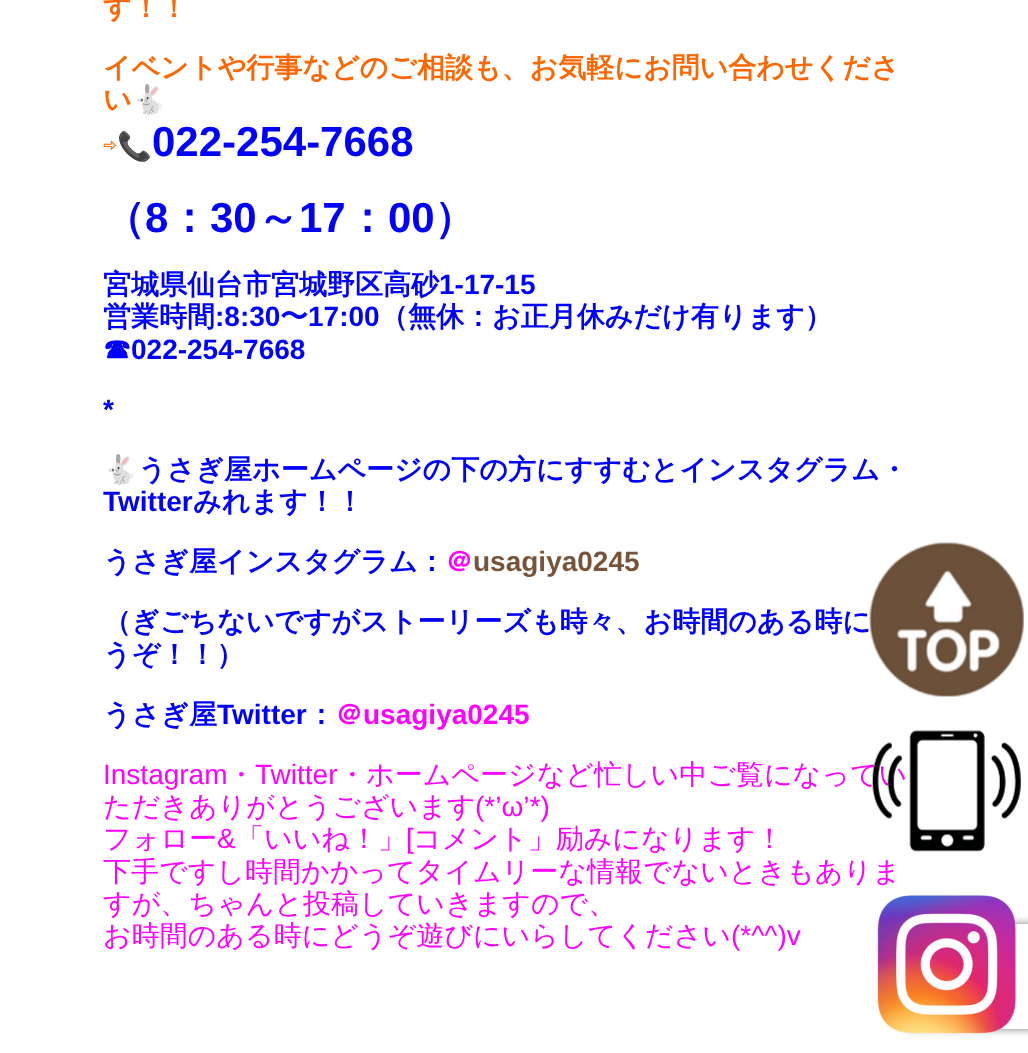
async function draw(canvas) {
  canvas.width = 1028
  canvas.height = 1053
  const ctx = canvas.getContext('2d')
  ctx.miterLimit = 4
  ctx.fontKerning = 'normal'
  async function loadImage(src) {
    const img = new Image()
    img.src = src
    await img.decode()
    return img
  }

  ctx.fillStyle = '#fff'
  ctx.fillRect(0, 0, 1028, 1053)
  ctx.font = 'bold 28px WenQuanYi Zen Hei'
  ctx.fillStyle = '#f60'
  ctx.fillText('す！！', 103, 17)
  ctx.fillText('イベントや行事などのご相談も、お気軽にお問い合わせくださ', 103, 77)
  ctx.fillText('い', 103, 109)
  ctx.font = 'bold 28px Noto Color Emoji'
  ctx.fillText('🐇', 132, 109)
  ctx.font = '28px IPAPGothic'
  ctx.fillText('⇨', 103, 156)
  ctx.font = '28px Noto Color Emoji'
  ctx.fillText('📞', 117, 156)
  ctx.font = 'bold 42px Liberation Sans'
  ctx.fillStyle = '#00f'
  ctx.fillText('022-254-7668', 152, 156)
  ctx.font = 'bold 42px WenQuanYi Zen Hei'
  ctx.fillText('（', 103, 232)
  ctx.font = 'bold 42px Liberation Sans'
  ctx.fillText('8', 145, 232)
  ctx.font = 'bold 42px WenQuanYi Zen Hei'
  ctx.fillText('：', 168, 232)
  ctx.font = 'bold 42px Liberation Sans'
  ctx.fillText('30', 210, 232)
  ctx.font = 'bold 42px WenQuanYi Zen Hei'
  ctx.fillText('～', 257, 232)
  ctx.font = 'bold 42px Liberation Sans'
  ctx.fillText('17', 299, 232)
  ctx.font = 'bold 42px WenQuanYi Zen Hei'
  ctx.fillText('：', 346, 232)
  ctx.font = 'bold 42px Liberation Sans'
  ctx.fillText('00', 388, 232)
  ctx.font = 'bold 42px WenQuanYi Zen Hei'
  ctx.fillText('）', 434, 232)
  ctx.font = 'bold 28px WenQuanYi Zen Hei'
  ctx.fillText('宮城県仙台市宮城野区高砂', 103, 294)
  ctx.font = 'bold 28px Liberation Sans'
  ctx.fillText('1-17-15', 439, 294)
  ctx.font = 'bold 28px WenQuanYi Zen Hei'
  ctx.fillText('営業時間', 103, 326)
  ctx.font = 'bold 28px Liberation Sans'
  ctx.fillText(':8:30', 215, 326)
  ctx.font = 'bold 28px WenQuanYi Zen Hei'
  ctx.fillText('〜', 280, 326)
  ctx.font = 'bold 28px Liberation Sans'
  ctx.fillText('17:00', 308, 326)
  ctx.font = 'bold 28px WenQuanYi Zen Hei'
  ctx.fillText('（無休：お正月休みだけ有ります）', 380, 326)
  ctx.fillText('☎︎', 103, 359)
  ctx.font = 'bold 28px Liberation Sans'
  ctx.fillText('022-254-7668', 131, 359)
  ctx.fillText('*', 103, 419)
  ctx.font = 'bold 28px Noto Color Emoji'
  ctx.fillText('🐇', 103, 479)
  ctx.font = 'bold 28px WenQuanYi Zen Hei'
  ctx.fillText('うさぎ屋ホームページの下の方にすすむとインスタグラム・', 138, 479)
  ctx.font = 'bold 28px Liberation Sans'
  ctx.fillText('Twitter', 103, 511)
  ctx.font = 'bold 28px WenQuanYi Zen Hei'
  ctx.fillText('みれます！！', 193, 511)
  ctx.fillText('うさぎ屋インスタグラム：', 103, 571)
  ctx.fillStyle = '#f0f'
  ctx.fillText('＠', 445, 571)
  ctx.font = 'bold 28px Liberation Sans'
  ctx.fillStyle = '#775439'
  ctx.fillText('usagiya0245', 473, 571)
  ctx.font = 'bold 28px WenQuanYi Zen Hei'
  ctx.fillStyle = '#00f'
  ctx.fillText('（ぎごちないですがストーリーズも時々、お時間のある時に', 103, 631)
  ctx.fillText('うぞ！！）', 103, 664)
  ctx.fillText('うさぎ屋', 103, 724)
  ctx.font = 'bold 28px Liberation Sans'
  ctx.fillText('Twitter', 217, 724)
  ctx.font = 'bold 28px WenQuanYi Zen Hei'
  ctx.fillText('：', 307, 724)
  ctx.fillStyle = '#f0f'
  ctx.fillText('＠', 335, 724)
  ctx.font = 'bold 28px Liberation Sans'
  ctx.fillText('usagiya0245', 363, 724)
  ctx.font = '28px Liberation Sans'
  ctx.fillText('Instagram', 103, 784)
  ctx.font = '500 28px WenQuanYi Zen Hei'
  ctx.fillText('・', 227, 784)
  ctx.font = '28px Liberation Sans'
  ctx.fillText('Twitter', 255, 784)
  ctx.font = '500 28px WenQuanYi Zen Hei'
  ctx.fillText('・ホームページなど忙しい中ご覧になってい', 338, 784)
  ctx.fillText('ただきありがとうございます', 103, 816)
  ctx.font = '28px Liberation Sans'
  ctx.fillText('(*’ω’*)', 475, 816)
  ctx.font = '500 28px WenQuanYi Zen Hei'
  ctx.fillText('フォロー', 103, 848)
  ctx.font = '28px Liberation Sans'
  ctx.fillText('&', 217, 848)
  ctx.font = '500 28px WenQuanYi Zen Hei'
  ctx.fillText('「いいね！」', 236, 848)
  ctx.font = '28px Liberation Sans'
  ctx.fillText('[', 406, 848)
  ctx.font = '500 28px WenQuanYi Zen Hei'
  ctx.fillText('コメント」励みになります！', 413, 848)
  ctx.fillText('下手ですし時間かかってタイムリーな情報でないときもありま', 103, 881)
  ctx.fillText('すが、ちゃんと投稿していきますので、', 103, 913)
  ctx.fillText('お時間のある時にどうぞ遊びにいらしてください', 103, 945)
  ctx.font = '28px Liberation Sans'
  ctx.fillText('(*^^)v', 731, 945)
  ctx.drawImage(await loadImage('image0.png'), 869, 542, 155, 155)
  ctx.drawImage(await loadImage('image1.png'), 872, 730, 149, 122)
  ctx.save()
  ctx.beginPath()
  ctx.moveTo(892, 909)
  ctx.lineTo(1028, 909)
  ctx.lineTo(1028, 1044)
  ctx.lineTo(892, 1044)
  ctx.closePath()
  ctx.moveTo(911, 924)
  ctx.lineTo(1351, 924)
  ctx.bezierCurveTo(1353, 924, 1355, 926, 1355, 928)
  ctx.lineTo(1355, 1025)
  ctx.bezierCurveTo(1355, 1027, 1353, 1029, 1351, 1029)
  ctx.lineTo(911, 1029)
  ctx.bezierCurveTo(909, 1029, 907, 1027, 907, 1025)
  ctx.lineTo(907, 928)
  ctx.bezierCurveTo(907, 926, 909, 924, 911, 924)
  ctx.closePath()
  ctx.clip('evenodd')
  ctx.fillStyle = '#808080'
  ctx.filter = 'blur(4.5px)'
  ctx.beginPath()
  ctx.roundRect(907, 924, 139, 105, 4)
  ctx.fill()
  ctx.filter = 'none'
  ctx.restore()
  ctx.drawImage(await loadImage('image2.png'), 877, 895, 139, 139)
}

draw(document.querySelector('canvas'))
